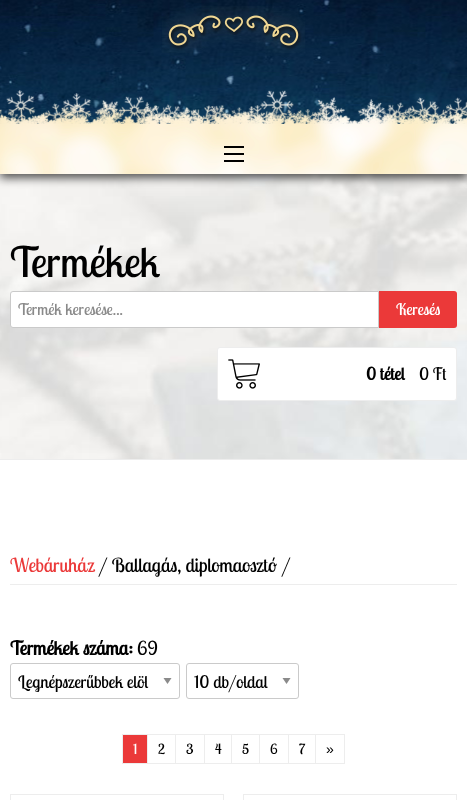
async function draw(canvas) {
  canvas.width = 467
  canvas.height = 800
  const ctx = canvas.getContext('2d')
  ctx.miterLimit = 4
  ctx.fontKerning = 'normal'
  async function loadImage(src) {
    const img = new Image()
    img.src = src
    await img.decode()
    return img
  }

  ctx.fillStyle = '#fff'
  ctx.fillRect(0, 0, 467, 800)
  ctx.drawImage(await loadImage('image3.png'), 0, 174, 467, 285)
  ctx.fillStyle = '#000000ab'
  ctx.filter = 'blur(5px)'
  ctx.beginPath()
  ctx.rect(0, 4, 467, 174)
  ctx.fill()
  ctx.filter = 'none'
  ctx.drawImage(await loadImage('image0.png'), 0, 0, 467, 124)
  ctx.drawImage(await loadImage('image1.png'), 162, 6, 143, 47)
  ctx.drawImage(await loadImage('image2.png'), 0, 90, 467, 84)
  ctx.fillStyle = '#000'
  ctx.fillRect(224, 160, 20, 2)
  ctx.fillRect(224, 153, 20, 2)
  ctx.fillRect(224, 146, 20, 2)
  ctx.fillStyle = '#ededed'
  ctx.fillRect(0, 459, 467, 1)
  ctx.font = '42px Lobster Two'
  ctx.fillStyle = '#000'
  ctx.fillText('Termékek', 10, 277)
  ctx.fillStyle = '#fff'
  ctx.beginPath()
  ctx.roundRect(10.5, 291.5, 368, 36, [2.5, 0, 0, 2.5])
  ctx.fill()
  ctx.strokeStyle = '#cacaca'
  ctx.stroke()
  ctx.font = '16px Lobster Two'
  ctx.fillStyle = '#8a8a8a'
  ctx.fillText('Termék keresése...', 18, 315)
  ctx.fillStyle = '#eb3939'
  ctx.beginPath()
  ctx.roundRect(379, 291, 78, 37, [0, 3, 3, 0])
  ctx.fill()
  ctx.fillStyle = '#fff'
  ctx.fillText('Keresés', 396, 315)
  ctx.beginPath()
  ctx.roundRect(217.5, 347.5, 239, 53, 2.5)
  ctx.fill()
  ctx.strokeStyle = '#ededed'
  ctx.stroke()
  ctx.drawImage(await loadImage('image4.png'), 228, 359, 32, 30)
  ctx.font = 'bold 17.25px Lobster Two'
  ctx.fillStyle = '#000'
  ctx.fillText('0 tétel', 366, 380)
  ctx.font = '17.25px Lobster Two'
  ctx.fillText('0 Ft', 419, 380)
  ctx.fillStyle = '#ededed'
  ctx.fillRect(10, 584, 447, 1)
  ctx.font = '19.25px Lobster Two'
  ctx.fillStyle = '#eb3939'
  ctx.fillText('Webáruház', 10, 572)
  ctx.fillStyle = '#000'
  ctx.fillText('/ Ballagás, diplomaosztó /', 98, 572)
  ctx.font = 'bold 19.25px Lobster Two'
  ctx.fillText('Termékek száma:', 10, 655)
  ctx.font = '19.25px Lobster Two'
  ctx.fillText('69', 137, 655)
  ctx.fillStyle = '#8a8a8a'
  ctx.beginPath()
  ctx.moveTo(163.5, 678)
  ctx.lineTo(171.5, 678)
  ctx.lineTo(167.5, 684)
  ctx.closePath()
  ctx.fill()
  ctx.beginPath()
  ctx.roundRect(10.5, 663.5, 169, 35, 2.5)
  ctx.strokeStyle = '#cacaca'
  ctx.stroke()
  ctx.save()
  ctx.beginPath()
  ctx.rect(18, 671, 140, 21)
  ctx.clip()
  ctx.font = '17.25px Lobster Two'
  ctx.fillStyle = '#000'
  ctx.fillText('Legnépszerűbbek elöl', 18, 688)
  ctx.restore()
  ctx.beginPath()
  ctx.moveTo(282.5, 678)
  ctx.lineTo(290.5, 678)
  ctx.lineTo(286.5, 684)
  ctx.closePath()
  ctx.fill()
  ctx.beginPath()
  ctx.roundRect(186.5, 663.5, 112, 35, 2.5)
  ctx.stroke()
  ctx.font = '17.25px Lobster Two'
  ctx.fillStyle = '#000'
  ctx.fillText('10 db/oldal', 194, 688)
  ctx.fillStyle = '#eb3939'
  ctx.beginPath()
  ctx.rect(122.5, 734.5, 25, 29)
  ctx.fill()
  ctx.strokeStyle = '#ededed'
  ctx.stroke()
  ctx.font = '14px Lobster Two'
  ctx.fillStyle = '#fff'
  ctx.fillText('1', 133, 754)
  ctx.fillStyle = '#ededed'
  ctx.fillRect(148, 734, 197, 1)
  ctx.fillRect(175, 734, 1, 30)
  ctx.fillRect(148, 763, 28, 1)
  ctx.fillStyle = '#000'
  ctx.fillText('2', 158, 754)
  ctx.fillStyle = '#ededed'
  ctx.fillRect(204, 734, 1, 30)
  ctx.fillRect(176, 763, 29, 1)
  ctx.fillStyle = '#000'
  ctx.fillText('3', 186, 754)
  ctx.fillStyle = '#ededed'
  ctx.fillRect(231, 734, 1, 30)
  ctx.fillRect(205, 763, 27, 1)
  ctx.fillStyle = '#000'
  ctx.fillText('4', 215, 754)
  ctx.fillStyle = '#ededed'
  ctx.fillRect(259, 734, 1, 30)
  ctx.fillRect(232, 763, 28, 1)
  ctx.fillStyle = '#000'
  ctx.fillText('5', 242, 754)
  ctx.fillStyle = '#ededed'
  ctx.fillRect(288, 734, 1, 30)
  ctx.fillRect(260, 763, 29, 1)
  ctx.fillStyle = '#000'
  ctx.fillText('6', 270, 754)
  ctx.fillStyle = '#ededed'
  ctx.fillRect(315, 734, 1, 30)
  ctx.fillRect(289, 763, 27, 1)
  ctx.fillStyle = '#000'
  ctx.fillText('7', 299, 754)
  ctx.fillStyle = '#ededed'
  ctx.fillRect(344, 734, 1, 30)
  ctx.fillRect(316, 763, 29, 1)
  ctx.font = '14px Liberation Sans'
  ctx.fillStyle = '#000'
  ctx.fillText('»', 326, 754)
  ctx.strokeRect(10.5, 794.5, 213, 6)
  ctx.strokeRect(243.5, 794.5, 213, 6)
}

draw(document.querySelector('canvas'))
